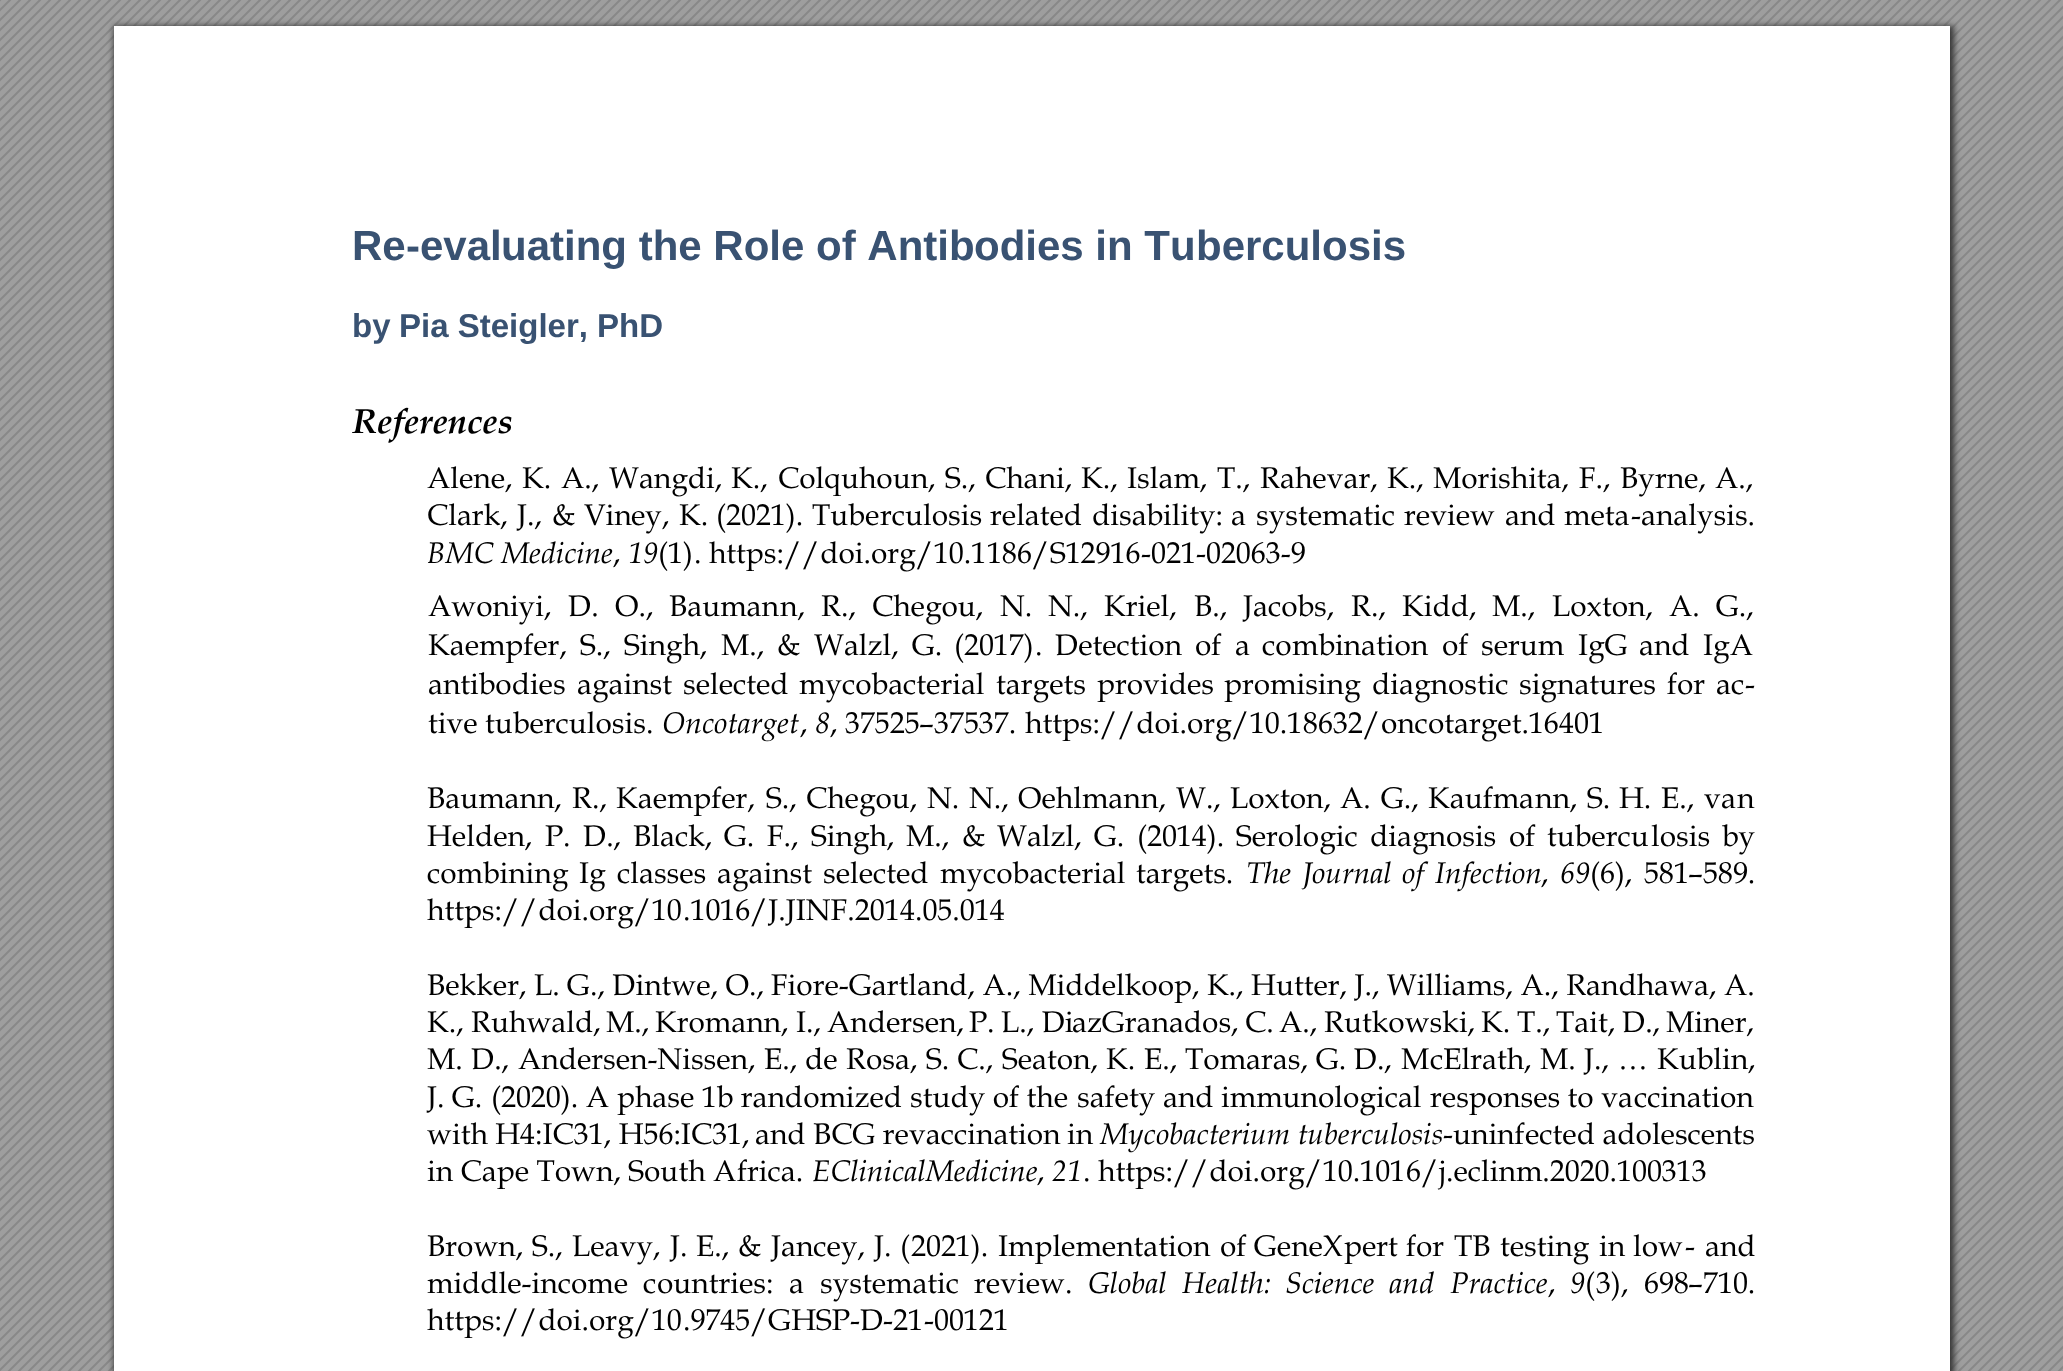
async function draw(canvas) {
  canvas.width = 2063
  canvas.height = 1371
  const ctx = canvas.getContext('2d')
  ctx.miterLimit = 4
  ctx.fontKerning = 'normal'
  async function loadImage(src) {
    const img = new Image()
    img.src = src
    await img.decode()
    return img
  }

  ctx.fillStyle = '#fff'
  ctx.fillRect(0, 0, 2063, 1371)
  ctx.drawImage(await loadImage('image0.png'), 0, 0, 2063, 1371)
  ctx.fillStyle = '#333'
  ctx.filter = 'blur(3px)'
  ctx.beginPath()
  ctx.rect(114, 26, 1840, 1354)
  ctx.fill()
  ctx.filter = 'none'
  ctx.fillStyle = '#fff'
  ctx.fillRect(114, 26, 1836, 1345)
  ctx.font = 'bold 42px Liberation Sans'
  ctx.fillStyle = '#395272'
  ctx.fillText('Re', 352, 260)
  ctx.fillText('-eval', 406, 260)
  ctx.fillText('uating the Role', 501, 260)
  ctx.fillText('of Antib', 816, 260)
  ctx.fillText('odies in Tu', 974, 260)
  ctx.fillText('berculosis', 1196, 260)
  ctx.font = 'bold 33px Liberation Sans'
  ctx.fillText('by', 352, 337)
  ctx.fillText('Pia Steigler, PhD', 399, 337)
  ctx.font = 'italic bold 34.5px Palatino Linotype'
  ctx.fillStyle = '#000'
  ctx.fillText('References', 352, 433)
  ctx.font = '29.9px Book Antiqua'
  ctx.fillText('Alene,', 427, 488)
  ctx.fillText('K.', 522, 488)
  ctx.fillText('A.,', 561, 488)
  ctx.fillText('Wangdi,', 609, 488)
  ctx.fillText('K.,', 731, 488)
  ctx.fillText('Colquhoun,', 778, 488)
  ctx.fillText('S.,', 945, 488)
  ctx.fillText('Chani,', 985, 488)
  ctx.fillText('K.,', 1081, 488)
  ctx.fillText('Islam,', 1127, 488)
  ctx.fillText('T.,', 1217, 488)
  ctx.fillText('Rahevar,', 1260, 488)
  ctx.fillText('K.,', 1387, 488)
  ctx.fillText('Morishita,', 1433, 488)
  ctx.fillText('F.,', 1579, 488)
  ctx.fillText('Byrne,', 1620, 488)
  ctx.fillText('A.,', 1715, 488)
  ctx.fillText('Clark,', 427, 525)
  ctx.fillText('J.,', 517, 525)
  ctx.fillText('&', 552, 525)
  ctx.fillText('Vin', 584, 525)
  ctx.fillText('ey,', 631, 525)
  ctx.fillText('K.', 679, 525)
  ctx.fillText('(2021).', 716, 525)
  ctx.fillText('Tube', 812, 525)
  ctx.fillText('rculosis', 880, 525)
  ctx.fillText('related', 990, 525)
  ctx.fillText('disability:', 1092, 525)
  ctx.fillText('a', 1231, 525)
  ctx.fillText('systematic', 1256, 525)
  ctx.fillText('review', 1404, 525)
  ctx.fillText('and', 1505, 525)
  ctx.fillText('meta', 1564, 525)
  ctx.fillText('-analysis.', 1631, 525)
  ctx.font = 'italic 29.9px Book Antiqua'
  ctx.fillText('BMC Medicine', 427, 563)
  ctx.fillText('19', 628, 563)
  ctx.font = '29.9px Book Antiqua'
  ctx.fillText('(1)', 658, 563)
  ctx.fillText('. https://doi.org/10.1', 694, 563)
  ctx.fillText('186/S12916', 987, 563)
  ctx.fillText('-', 1141, 563)
  ctx.fillText('021', 1151, 563)
  ctx.fillText('-02063-9', 1196, 563)
  ctx.fillText(',', 613, 563)
  ctx.fillText('Awoniyi,', 428, 616)
  ctx.fillText('D.', 568, 616)
  ctx.fillText('O.,', 615, 616)
  ctx.fillText('Bauman', 669, 616)
  ctx.fillText('n,', 780, 616)
  ctx.fillText('R.,', 821, 616)
  ctx.fillText('Chegou,', 872, 616)
  ctx.fillText('N.', 1000, 616)
  ctx.fillText('N.,', 1048, 616)
  ctx.fillText('Kriel,', 1104, 616)
  ctx.fillText('B.,', 1194, 616)
  ctx.fillText('Jacobs,', 1243, 616)
  ctx.fillText('R.,', 1351, 616)
  ctx.fillText('Kidd,', 1402, 616)
  ctx.fillText('M.,', 1492, 616)
  ctx.fillText('Loxton,', 1552, 616)
  ctx.fillText('A.', 1669, 616)
  ctx.fillText('G.,', 1716, 616)
  ctx.fillText('Kaempfer,', 428, 655)
  ctx.fillText('S.,', 580, 655)
  ctx.fillText('Singh,', 624, 655)
  ctx.fillText('M.,', 721, 655)
  ctx.fillText('&', 777, 655)
  ctx.fillText('Walzl,', 814, 655)
  ctx.fillText('G.', 912, 655)
  ctx.fillText('(2017)', 954, 655)
  ctx.fillText('.', 1035, 655)
  ctx.fillText('Detection', 1055, 655)
  ctx.fillText('of', 1195, 655)
  ctx.fillText('a', 1235, 655)
  ctx.fillText('co', 1262, 655)
  ctx.fillText('mbination', 1292, 655)
  ctx.fillText('of', 1442, 655)
  ctx.fillText('serum', 1481, 655)
  ctx.fillText('IgG', 1578, 655)
  ctx.fillText('and', 1639, 655)
  ctx.fillText('IgA', 1703, 655)
  ctx.fillText('antibodies', 428, 694)
  ctx.fillText('against', 577, 694)
  ctx.fillText('selected', 683, 694)
  ctx.fillText('mycobacterial', 799, 694)
  ctx.fillText('targets', 996, 694)
  ctx.fillText('provides', 1097, 694)
  ctx.fillText('promising', 1224, 694)
  ctx.fillText('diagnostic', 1372, 694)
  ctx.fillText('signatures', 1519, 694)
  ctx.fillText('for', 1667, 694)
  ctx.fillText('ac', 1716, 694)
  ctx.fillText('-', 1745, 694)
  ctx.fillText('tive tuberculosis.', 428, 733)
  ctx.font = 'italic 29.9px Book Antiqua'
  ctx.fillText('Oncotarget', 662, 733)
  ctx.fillText('8', 815, 733)
  ctx.font = '29.9px Book Antiqua'
  ctx.fillText(', 37525', 830, 733)
  ctx.font = '29.9px "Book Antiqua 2"'
  ctx.fillText('–', 919, 733)
  ctx.font = '29.9px Book Antiqua'
  ctx.fillText('37537.', 934, 733)
  ctx.fillText('https://doi.org/10.1', 1025, 733)
  ctx.fillText('8632/oncotarget.16', 1303, 733)
  ctx.fillText('401', 1559, 733)
  ctx.fillText(',', 800, 733)
  ctx.fillText('Baumann,', 427, 808)
  ctx.fillText('R.,', 572, 808)
  ctx.fillText('Kaempfer,', 616, 808)
  ctx.fillText('S.,', 766, 808)
  ctx.fillText('Chegou,', 806, 808)
  ctx.fillText('N.', 927, 808)
  ctx.fillText('N.,', 969, 808)
  ctx.fillText('Oehlman', 1018, 808)
  ctx.fillText('n,', 1141, 808)
  ctx.fillText('W.,', 1176, 808)
  ctx.fillText('Loxton,', 1230, 808)
  ctx.fillText('A.', 1340, 808)
  ctx.fillText('G.,', 1381, 808)
  ctx.fillText('Kaufma', 1428, 808)
  ctx.fillText('nn,', 1535, 808)
  ctx.fillText('S.', 1587, 808)
  ctx.fillText('H.', 1619, 808)
  ctx.fillText('E.,', 1661, 808)
  ctx.fillText('va', 1704, 808)
  ctx.fillText('n', 1737, 808)
  ctx.fillText('Helden,', 427, 846)
  ctx.fillText('P.', 545, 846)
  ctx.fillText('D.,', 583, 846)
  ctx.fillText('Black,', 633, 846)
  ctx.fillText('G.', 724, 846)
  ctx.fillText('F.,', 767, 846)
  ctx.fillText('Singh,', 811, 846)
  ctx.fillText('M.,', 906, 846)
  ctx.fillText('&', 962, 846)
  ctx.fillText('Walzl,', 997, 846)
  ctx.fillText('G.', 1094, 846)
  ctx.fillText('(2014).', 1137, 846)
  ctx.fillText('Serologic', 1236, 846)
  ctx.fillText('diagnosis', 1370, 846)
  ctx.fillText('of', 1509, 846)
  ctx.fillText('tubercu', 1547, 846)
  ctx.fillText('losis', 1651, 846)
  ctx.fillText('by', 1722, 846)
  ctx.fillText('combining', 427, 883)
  ctx.fillText('Ig', 579, 883)
  ctx.fillText('classes', 617, 883)
  ctx.fillText('against', 717, 883)
  ctx.fillText('selected', 823, 883)
  ctx.fillText('mycobacterial', 940, 883)
  ctx.fillText('targets.', 1136, 883)
  ctx.font = 'italic 29.9px Book Antiqua'
  ctx.fillText('The', 1246, 883)
  ctx.fillText('Journal', 1302, 883)
  ctx.fillText('of', 1402, 883)
  ctx.fillText('Infection', 1435, 883)
  ctx.fillText('69', 1560, 883)
  ctx.font = '29.9px Book Antiqua'
  ctx.fillText('(6),', 1590, 883)
  ctx.fillText('581', 1644, 883)
  ctx.font = '29.9px "Book Antiqua 2"'
  ctx.fillText('–', 1688, 883)
  ctx.font = '29.9px Book Antiqua'
  ctx.fillText('589.', 1703, 883)
  ctx.fillText(',', 1541, 883)
  ctx.fillText('https://doi.org/10', 427, 920)
  ctx.fillText('.1016/J.JINF.201', 683, 920)
  ctx.fillText('4.05.014', 900, 920)
  ctx.fillText('Bekker, L. G., Dintwe, O.,', 427, 995)
  ctx.fillText('Fiore-', 771, 995)
  ctx.fillText('Gartland, A., Middelkoop, K., Hutter, J., Williams, A., Randhawa, A.', 849, 995)
  ctx.fillText('K.,', 427, 1032)
  ctx.fillText('Ruhwald,', 471, 1032)
  ctx.fillText('M.,', 606, 1032)
  ctx.fillText('Kromann, I.,', 655, 1032)
  ctx.fillText('Andersen,', 827, 1032)
  ctx.fillText('P.', 969, 1032)
  ctx.fillText('L., Di', 1001, 1032)
  ctx.fillText('a', 1072, 1032)
  ctx.fillText('zGranados,', 1087, 1032)
  ctx.fillText('C.', 1245, 1032)
  ctx.fillText('A.,', 1279, 1032)
  ctx.fillText('Rutkowski,', 1324, 1032)
  ctx.fillText('K.', 1481, 1032)
  ctx.fillText('T.,', 1517, 1032)
  ctx.fillText('Tait,', 1556, 1032)
  ctx.fillText('D.,', 1622, 1032)
  ctx.fillText('Miner,', 1666, 1032)
  ctx.fillText('M.', 427, 1069)
  ctx.fillText('D.,', 471, 1069)
  ctx.fillText('Andersen-Nissen,', 518, 1069)
  ctx.fillText('E.,', 764, 1069)
  ctx.fillText('de', 805, 1069)
  ctx.fillText('Rosa,', 846, 1069)
  ctx.fillText('S.', 926, 1069)
  ctx.fillText('C.,', 957, 1069)
  ctx.fillText('Seaton,', 1002, 1069)
  ctx.fillText('K.', 1106, 1069)
  ctx.fillText('E.,', 1144, 1069)
  ctx.fillText('Tomaras,', 1185, 1069)
  ctx.fillText('G. D.,', 1316, 1069)
  ctx.fillText('M', 1401, 1069)
  ctx.fillText('cElrath,', 1430, 1069)
  ctx.fillText('M.', 1540, 1069)
  ctx.fillText('J.,', 1584, 1069)
  ctx.font = '29.9px "Book Antiqua 2"'
  ctx.fillText('…', 1618, 1069)
  ctx.fillText('Kublin,', 1657, 1069)
  ctx.font = '29.9px Book Antiqua'
  ctx.fillText('J. G.', 427, 1107)
  ctx.fillText('(2020). A', 491, 1107)
  ctx.fillText('phase 1b randomized', 617, 1107)
  ctx.fillText('study of the', 910, 1107)
  ctx.fillText('safety', 1077, 1107)
  ctx.fillText('and immunological', 1163, 1107)
  ctx.fillText('responses to va', 1430, 1107)
  ctx.fillText('ccination', 1634, 1107)
  ctx.fillText('with H4:IC31, H56:IC31,', 427, 1144)
  ctx.fillText('and BCG revaccination', 755, 1144)
  ctx.fillText('in', 1067, 1144)
  ctx.font = 'italic 29.9px Book Antiqua'
  ctx.fillText('Myc', 1100, 1144)
  ctx.fillText('obacterium tuberculosis', 1156, 1144)
  ctx.font = '29.9px Book Antiqua'
  ctx.fillText('-uninf', 1443, 1144)
  ctx.fillText('ected adolescents', 1525, 1144)
  ctx.fillText('in Cape Town, South A', 427, 1181)
  ctx.fillText('frica.', 737, 1181)
  ctx.font = 'italic 29.9px Book Antiqua'
  ctx.fillText('EClinicalMedicine', 812, 1181)
  ctx.font = '29.9px Book Antiqua'
  ctx.fillText(',', 1037, 1181)
  ctx.font = 'italic 29.9px Book Antiqua'
  ctx.fillText('21', 1052, 1181)
  ctx.font = '29.9px Book Antiqua'
  ctx.fillText('.', 1083, 1181)
  ctx.fillText('https://doi.org/10.101', 1098, 1181)
  ctx.fillText('6/j.eclinm.2020.100313', 1406, 1181)
  ctx.fillText('Brown,', 427, 1256)
  ctx.fillText('S.,', 532, 1256)
  ctx.fillText('Leavy,', 572, 1256)
  ctx.fillText('J.', 670, 1256)
  ctx.fillText('E.,', 696, 1256)
  ctx.fillText('&', 738, 1256)
  ctx.fillText('Jancey,', 771, 1256)
  ctx.fillText('J.', 874, 1256)
  ctx.fillText('(', 900, 1256)
  ctx.fillText('2021).', 911, 1256)
  ctx.fillText('Implementation', 998, 1256)
  ctx.fillText('of', 1220, 1256)
  ctx.fillText('GeneX', 1254, 1256)
  ctx.fillText('pert', 1344, 1256)
  ctx.fillText('for', 1406, 1256)
  ctx.fillText('TB', 1454, 1256)
  ctx.fillText('testing', 1500, 1256)
  ctx.fillText('in', 1599, 1256)
  ctx.fillText('low', 1633, 1256)
  ctx.fillText('-', 1685, 1256)
  ctx.fillText('and', 1705, 1256)
  ctx.fillText('middle-income', 427, 1293)
  ctx.fillText('c', 643, 1293)
  ctx.fillText('ountries:', 657, 1293)
  ctx.fillText('a', 789, 1293)
  ctx.fillText('systematic', 820, 1293)
  ctx.fillText('review.', 974, 1293)
  ctx.font = 'italic 29.9px Book Antiqua'
  ctx.fillText('Global', 1088, 1293)
  ctx.fillText('Health:', 1182, 1293)
  ctx.fillText('Science', 1285, 1293)
  ctx.fillText('and', 1389, 1293)
  ctx.fillText('Practice', 1450, 1293)
  ctx.fillText('9', 1570, 1293)
  ctx.font = '29.9px Book Antiqua'
  ctx.fillText('(', 1585, 1293)
  ctx.fillText('3),', 1596, 1293)
  ctx.fillText('698', 1644, 1293)
  ctx.font = '29.9px "Book Antiqua 2"'
  ctx.fillText('–', 1688, 1293)
  ctx.font = '29.9px Book Antiqua'
  ctx.fillText('710.', 1703, 1293)
  ctx.fillText(',', 1548, 1293)
  ctx.fillText('https://doi.org/10', 427, 1330)
  ctx.fillText('.9745/GHSP', 683, 1330)
  ctx.fillText('-D-', 850, 1330)
  ctx.fillText('21', 893, 1330)
  ctx.fillText('-00121', 924, 1330)
}

draw(document.querySelector('canvas'))
